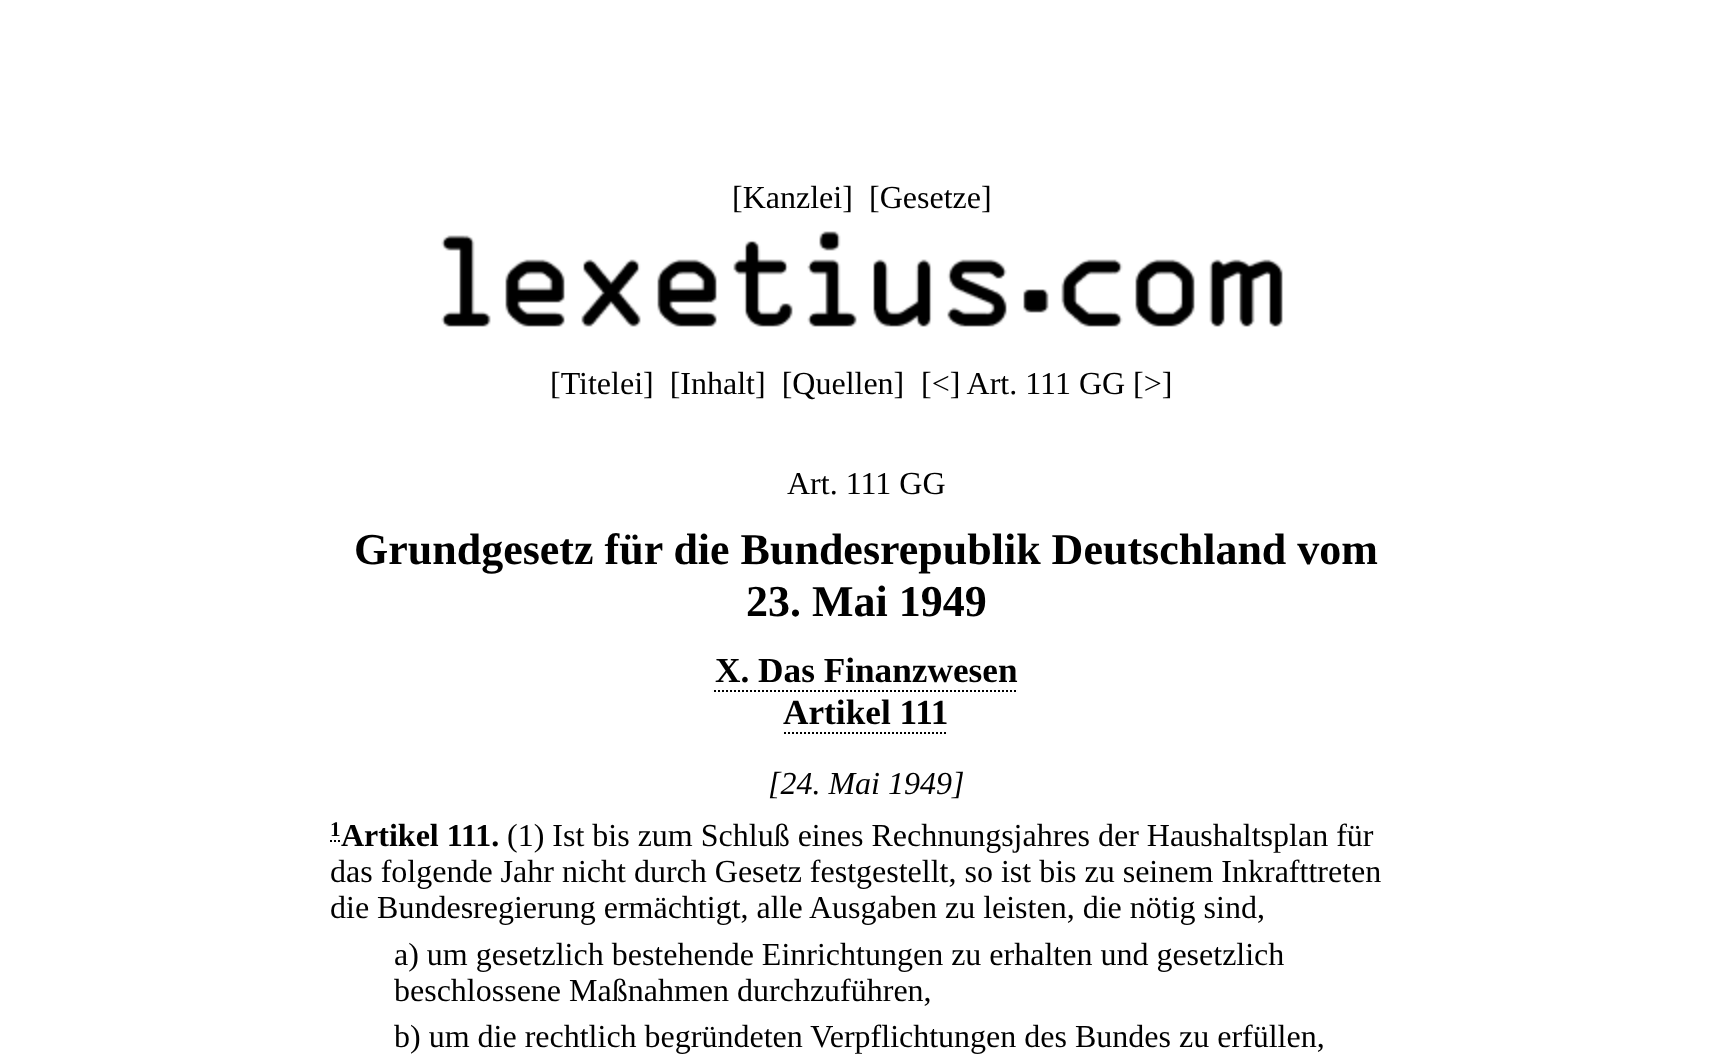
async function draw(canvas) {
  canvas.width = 1732
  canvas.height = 1058
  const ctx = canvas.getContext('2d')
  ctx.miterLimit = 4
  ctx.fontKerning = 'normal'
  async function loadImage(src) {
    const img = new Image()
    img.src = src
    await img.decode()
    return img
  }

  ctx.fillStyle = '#fff'
  ctx.fillRect(0, 0, 1732, 1058)
  ctx.font = '32px Liberation Serif'
  ctx.fillStyle = '#000'
  ctx.fillText('[Kanzlei]', 732, 208)
  ctx.fillText('[Gesetze]', 869, 208)
  ctx.drawImage(await loadImage('image0.png'), 441, 231, 842, 96)
  ctx.fillText('[Titelei]  [Inhalt]  [Quellen]', 550, 394)
  ctx.fillText('[<] Art. 111 GG [>]', 921, 394)
  ctx.fillText('Art. 111 GG', 787, 494)
  ctx.font = 'bold 44px Liberation Serif'
  ctx.fillText('Grundgesetz für die Bundesrepublik Deutschland vom', 354, 564)
  ctx.fillText('23. Mai 1949', 746, 616)
  ctx.font = 'bold 35.25px Liberation Serif'
  ctx.fillText('X. Das Finanzwesen', 715, 682)
  ctx.beginPath()
  ctx.moveTo(714, 691)
  ctx.lineTo(1018, 691)
  ctx.strokeStyle = '#000'
  ctx.lineWidth = 2
  ctx.setLineDash([2, 2])
  ctx.stroke()
  ctx.fillText('Artikel 111', 783, 724)
  ctx.beginPath()
  ctx.moveTo(784, 733)
  ctx.lineTo(948, 733)
  ctx.stroke()
  ctx.font = 'italic 32px Liberation Serif'
  ctx.fillText('[24. Mai 1949]', 768, 794)
  ctx.font = 'bold 21px Liberation Serif'
  ctx.fillText('1', 330, 836)
  ctx.beginPath()
  ctx.moveTo(330, 841)
  ctx.lineTo(332, 841)
  ctx.moveTo(334, 841)
  ctx.lineTo(336, 841)
  ctx.moveTo(338, 841)
  ctx.lineTo(340, 841)
  ctx.setLineDash([])
  ctx.stroke()
  ctx.font = '32px Liberation Serif'
  ctx.fillText('(1) Ist bis zum Schluß eines Rechnungsjahres der Haushaltsplan für', 507, 846)
  ctx.fillText('das folgende Jahr nicht durch Gesetz festgestellt, so ist bis zu seinem Inkrafttreten', 330, 882)
  ctx.fillText('die Bundesregierung ermächtigt, alle Ausgaben zu leisten, die nötig sind,', 330, 918)
  ctx.fillText('a) um gesetzlich bestehende Einrichtungen zu erhalten und gesetzlich', 394, 965)
  ctx.fillText('beschlossene Maßnahmen durchzuführen,', 394, 1001)
  ctx.fillText('b) um die rechtlich begründeten Verpflichtungen des Bundes zu erfüllen,', 394, 1047)
  ctx.font = 'bold 32px Liberation Serif'
  ctx.fillText('Artikel 111.', 341, 846)
}

draw(document.querySelector('canvas'))
